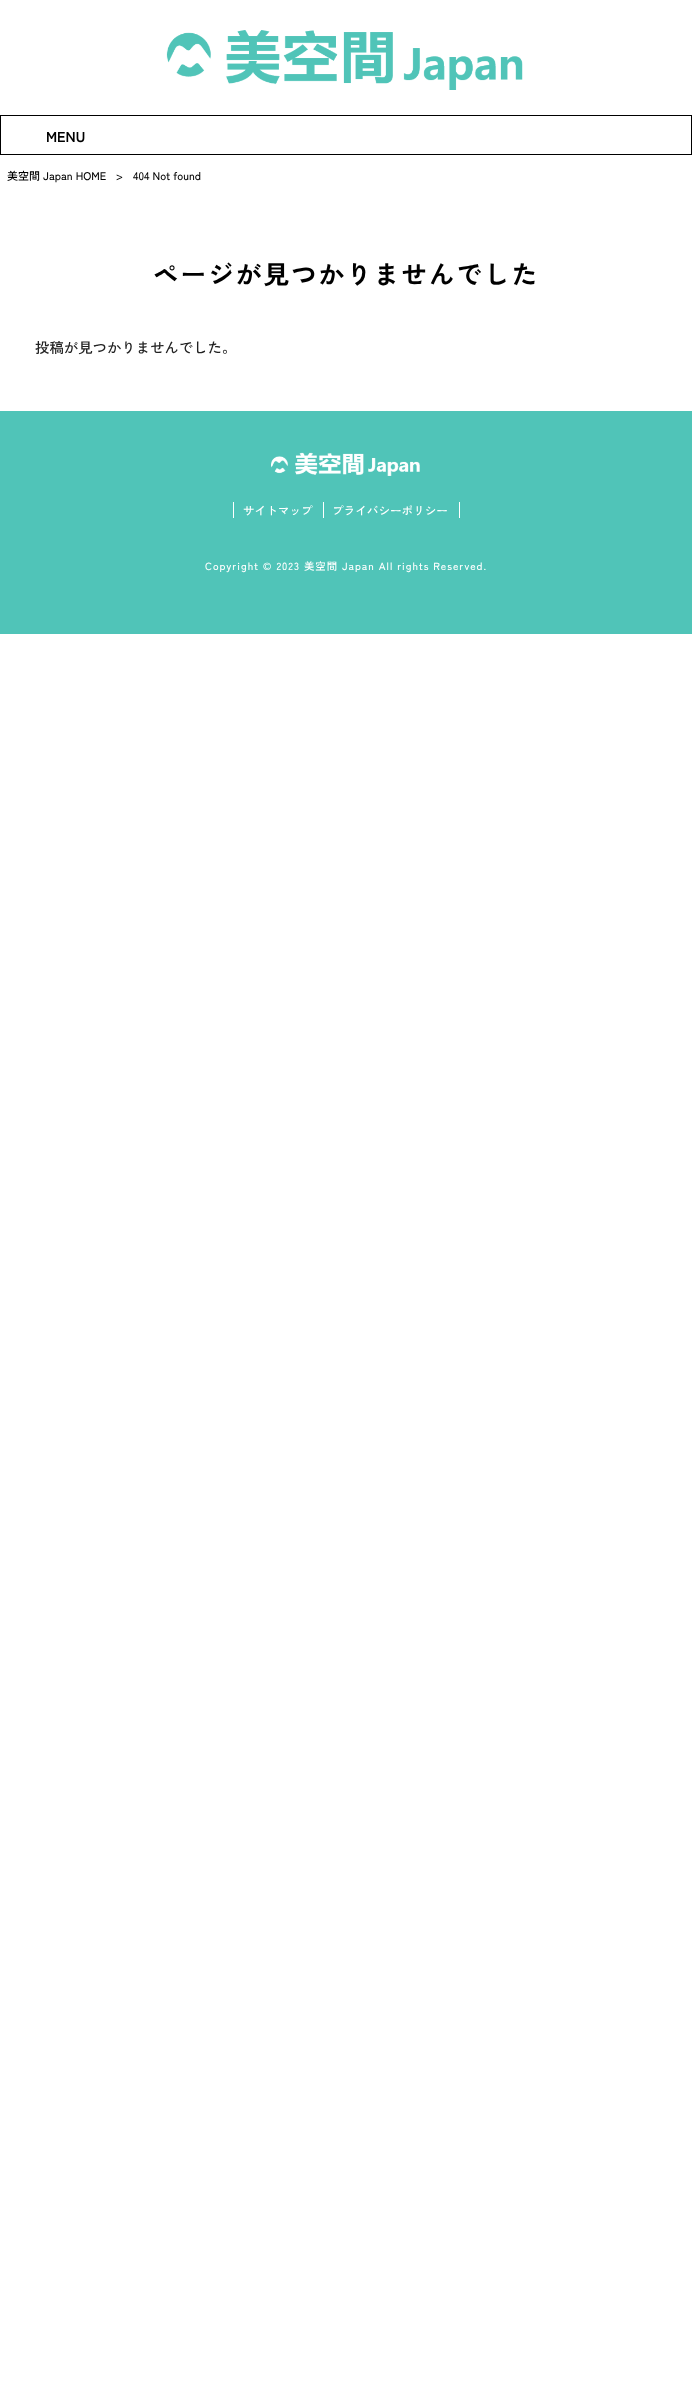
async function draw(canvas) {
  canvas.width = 692
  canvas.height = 2403
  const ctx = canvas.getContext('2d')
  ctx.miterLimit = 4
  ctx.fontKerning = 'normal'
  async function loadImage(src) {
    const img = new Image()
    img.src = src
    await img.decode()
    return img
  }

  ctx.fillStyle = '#fff'
  ctx.fillRect(0, 0, 692, 2403)
  ctx.drawImage(await loadImage('image0.png'), 166, 30, 357, 60)
  ctx.strokeStyle = '#000'
  ctx.strokeRect(0.5, 115.5, 691, 39)
  ctx.font = 'bold 14.4px Zen Kaku Gothic New'
  ctx.fillStyle = '#000'
  ctx.fillText('MENU', 46, 142)
  ctx.font = '500 11px Zen Kaku Gothic New'
  ctx.fillText('美空間 Japan HOME', 7, 180)
  ctx.fillText('>', 116, 180)
  ctx.fillText('404 Not found', 133, 180)
  ctx.letterSpacing = '2px'
  ctx.font = 'bold 25.6px Zen Kaku Gothic New'
  ctx.fillText('ページが見つかりませんでした', 153, 284)
  ctx.letterSpacing = '0px'
  ctx.font = '500 14.4px Zen Kaku Gothic New'
  ctx.fillStyle = '#222'
  ctx.fillText('投稿が見つかりませんでした。', 35, 353)
  ctx.fillStyle = '#50c4b8'
  ctx.fillRect(0, 411, 692, 223)
  ctx.drawImage(await loadImage('image1.png'), 271, 452, 149, 24)
  ctx.fillStyle = '#fff'
  ctx.fillRect(233, 502, 1, 16)
  ctx.font = '500 11.6px Zen Kaku Gothic New'
  ctx.fillText('サイトマップ', 243, 515)
  ctx.fillRect(323, 502, 1, 16)
  ctx.fillText('プライバシーポリシー', 332, 515)
  ctx.fillRect(459, 502, 1, 16)
  ctx.letterSpacing = '1px'
  ctx.font = '500 10.4px Zen Kaku Gothic New'
  ctx.fillText('Copyright © 2023 美空間 Japan All rights Reserved.', 205, 570)
}

draw(document.querySelector('canvas'))
